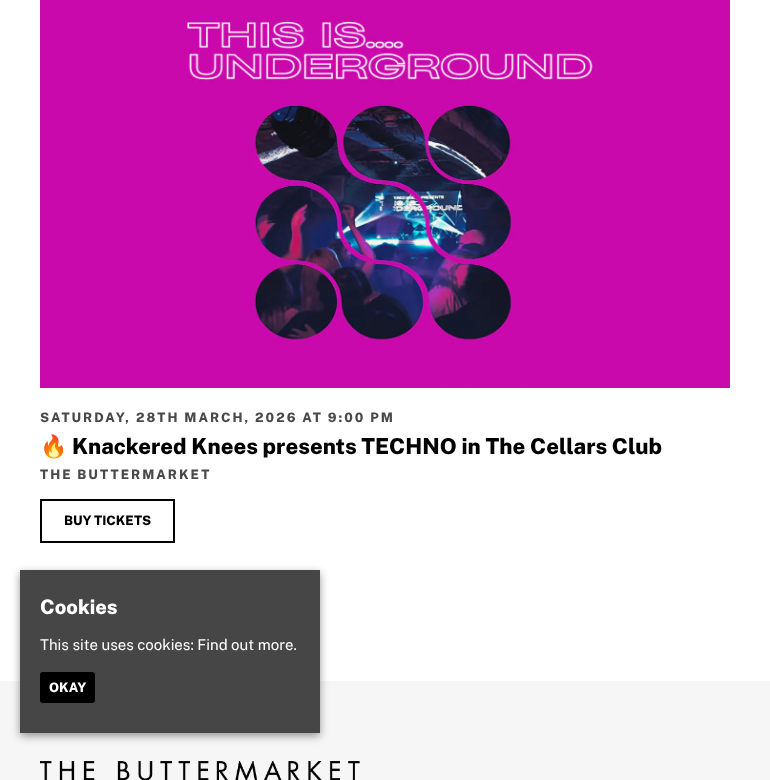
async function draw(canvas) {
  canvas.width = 770
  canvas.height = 780
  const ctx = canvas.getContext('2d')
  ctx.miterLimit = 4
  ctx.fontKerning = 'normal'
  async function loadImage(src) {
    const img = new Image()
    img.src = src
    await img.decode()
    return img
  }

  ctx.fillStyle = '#fff'
  ctx.fillRect(0, 0, 770, 780)
  ctx.drawImage(await loadImage('image0.png'), 40, 0, 690, 388)
  ctx.letterSpacing = '2px'
  ctx.font = '800 13px Public Sans'
  ctx.fillStyle = '#494949'
  ctx.fillText('SATURDAY, 28TH MARCH, 2026 AT 9:00 PM', 40, 422)
  ctx.letterSpacing = '0px'
  ctx.font = 'bold 22px Noto Color Emoji'
  ctx.fillStyle = '#000'
  ctx.fillText('🔥', 40, 454)
  ctx.font = '800 22px Public Sans'
  ctx.fillText('Knackered Knees presents TECHNO in The Cellars Club', 72, 454)
  ctx.letterSpacing = '2px'
  ctx.font = '800 13px Public Sans'
  ctx.fillStyle = '#494949'
  ctx.fillText('THE BUTTERMARKET', 40, 479)
  ctx.strokeStyle = '#000'
  ctx.lineWidth = 2
  ctx.strokeRect(41, 500, 133, 42)
  ctx.letterSpacing = '0px'
  ctx.fillStyle = '#000'
  ctx.fillText('BUY TICKETS', 64, 525)
  ctx.fillStyle = '#f6f6f6'
  ctx.fillRect(0, 681, 770, 99)
  ctx.fillStyle = '#00000066'
  ctx.filter = 'blur(4.5px)'
  ctx.beginPath()
  ctx.rect(20, 573, 300, 163)
  ctx.fill()
  ctx.filter = 'none'
  ctx.fillStyle = '#464646'
  ctx.fillRect(20, 570, 300, 163)
  ctx.font = '800 20px Public Sans'
  ctx.fillStyle = '#fff'
  ctx.fillText('Cookies', 40, 614)
  ctx.font = '15px Public Sans'
  ctx.fillText('This site uses cookies: Find out more.', 40, 650)
  ctx.fillStyle = '#000'
  ctx.beginPath()
  ctx.roundRect(40, 672, 55, 31, 3)
  ctx.fill()
  ctx.font = '800 13px Public Sans'
  ctx.fillStyle = '#fff'
  ctx.fillText('OKAY', 49, 692)
  ctx.drawImage(await loadImage('image1.png'), 40, 761, 320, 19)
}

draw(document.querySelector('canvas'))
